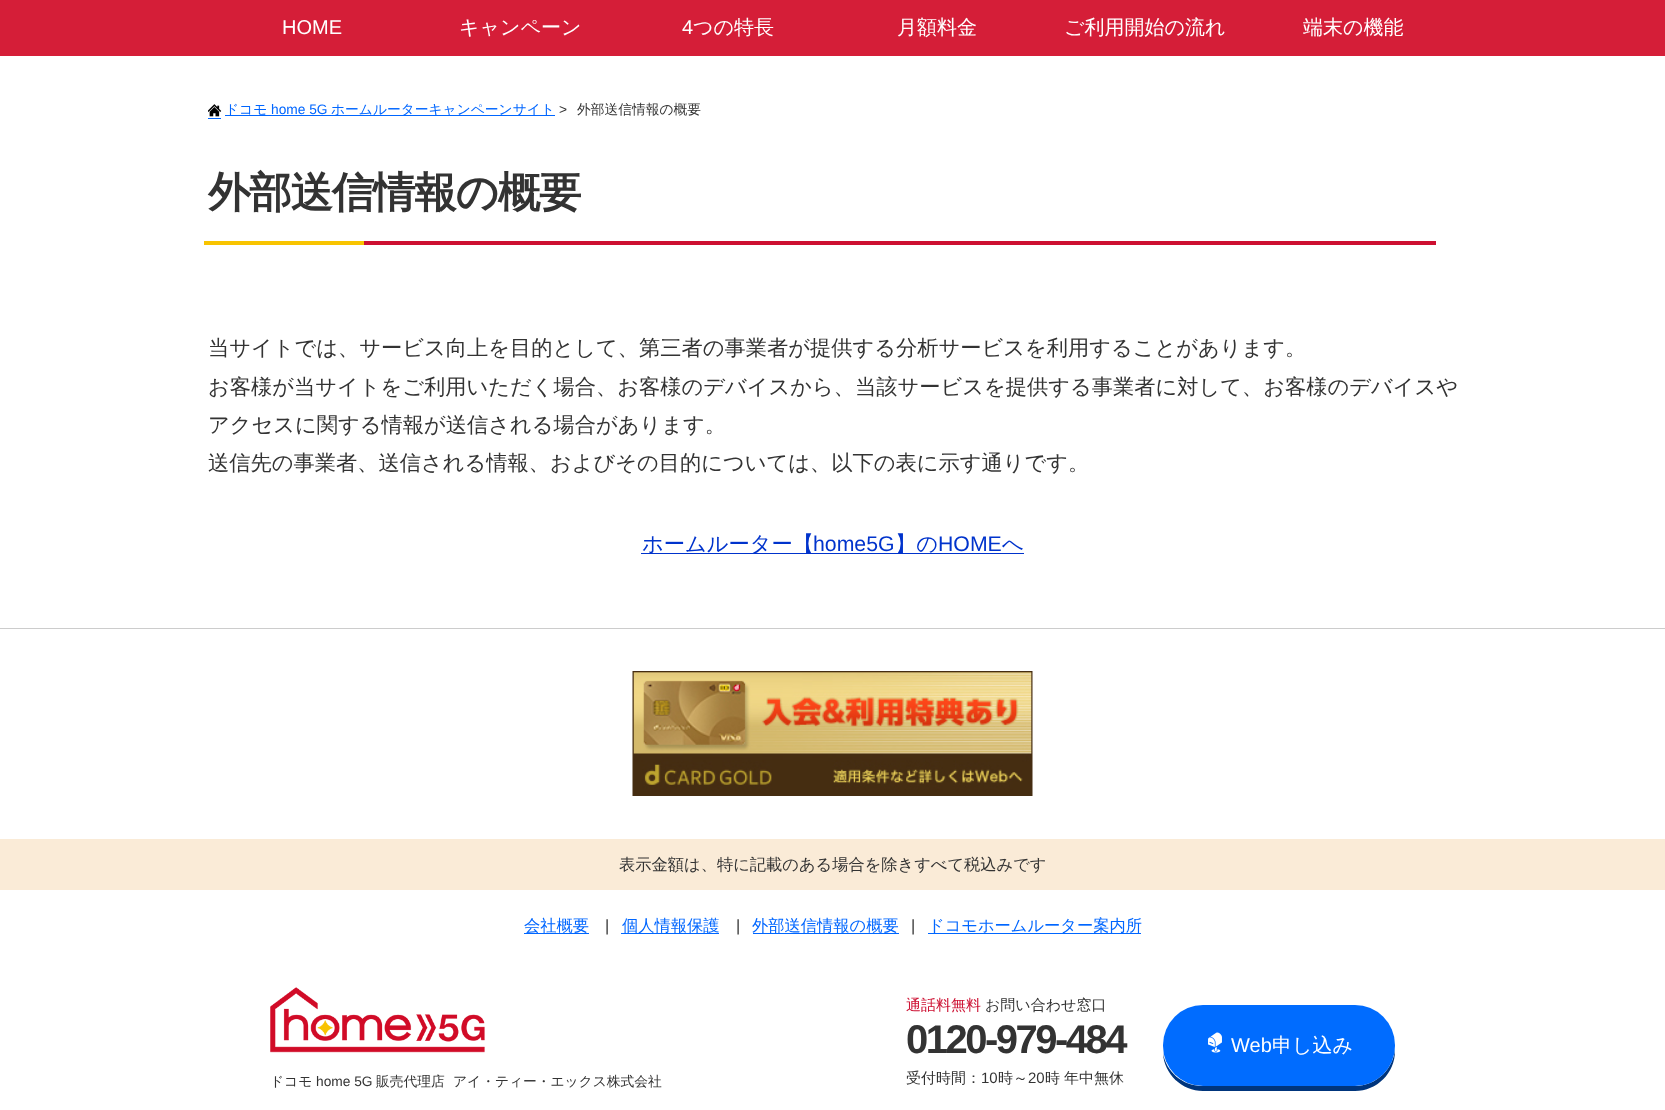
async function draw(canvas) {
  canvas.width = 1665
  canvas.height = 1110
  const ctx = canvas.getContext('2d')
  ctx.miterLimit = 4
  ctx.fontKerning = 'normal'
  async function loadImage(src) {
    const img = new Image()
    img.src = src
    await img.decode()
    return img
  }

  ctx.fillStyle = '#fff'
  ctx.fillRect(0, 0, 1665, 1110)
  ctx.fillStyle = '#d51e38'
  ctx.fillRect(0, 0, 1665, 56)
  ctx.font = '20px Liberation Sans'
  ctx.fillStyle = '#fff'
  ctx.fillText('HOME', 282, 34)
  ctx.font = '500 20px WenQuanYi Zen Hei'
  ctx.fillText('キャンペーン', 459, 34)
  ctx.font = '20px Liberation Sans'
  ctx.fillText('4', 682, 34)
  ctx.font = '500 20px WenQuanYi Zen Hei'
  ctx.fillText('つの特長', 693, 34)
  ctx.fillText('月額料金', 897, 34)
  ctx.fillText('ご利用開始の流れ', 1064, 34)
  ctx.fillText('端末の機能', 1303, 34)
  ctx.drawImage(await loadImage('image0.png'), 208, 104, 14, 13)
  ctx.fillStyle = '#06f'
  ctx.fillRect(225, 115, 330, 1)
  ctx.font = '500 13.75px WenQuanYi Zen Hei'
  ctx.fillText('ドコモ', 225, 114)
  ctx.fillRect(208, 118, 13, 1)
  ctx.font = '13.75px Liberation Sans'
  ctx.fillText('home 5G', 271, 114)
  ctx.font = '500 13.75px WenQuanYi Zen Hei'
  ctx.fillText('ホームルーターキャンペーンサイト', 331, 114)
  ctx.font = '13.75px Liberation Sans'
  ctx.fillStyle = '#333'
  ctx.fillText('>', 559, 114)
  ctx.font = '500 13.75px WenQuanYi Zen Hei'
  ctx.fillText('外部送信情報の概要', 577, 114)
  ctx.fillStyle = '#cd0f31'
  ctx.fillRect(364, 241, 1072, 4)
  ctx.letterSpacing = '-1.25px'
  ctx.font = 'bold 42.5px WenQuanYi Zen Hei'
  ctx.fillStyle = '#333'
  ctx.fillText('外部送信情報の概要', 208, 207)
  ctx.fillStyle = '#f8c400'
  ctx.fillRect(204, 241, 160, 4)
  ctx.letterSpacing = '0px'
  ctx.font = '500 21.25px WenQuanYi Zen Hei'
  ctx.fillStyle = '#333'
  ctx.fillText('当サイトでは、サービス向上を目的として、第三者の事業者が提供する分析サービスを利用することがあります。', 208, 355)
  ctx.fillText('お客様が当サイトをご利用いただく場合、お客様のデバイスから、当該サービスを提供する事業者に対して、お客様のデバイスや', 208, 394)
  ctx.fillText('アクセスに関する情報が送信される場合があります。', 208, 432)
  ctx.fillText('送信先の事業者、送信される情報、およびその目的については、以下の表に示す通りです。', 208, 470)
  ctx.fillStyle = '#03c'
  ctx.fillRect(641, 553, 383, 1)
  ctx.fillText('ホームルーター【', 642, 551)
  ctx.font = '21.25px Liberation Sans'
  ctx.fillText('home5G', 813, 551)
  ctx.font = '500 21.25px WenQuanYi Zen Hei'
  ctx.fillText('】の', 895, 551)
  ctx.font = '21.25px Liberation Sans'
  ctx.fillText('HOME', 938, 551)
  ctx.font = '500 21.25px WenQuanYi Zen Hei'
  ctx.fillText('へ', 1002, 551)
  ctx.fillStyle = '#ccc'
  ctx.fillRect(0, 628, 1665, 1)
  ctx.drawImage(await loadImage('image1.png'), 632, 671, 401, 125)
  ctx.fillStyle = '#faebd7'
  ctx.fillRect(0, 839, 1665, 51)
  ctx.font = '500 16.25px WenQuanYi Zen Hei'
  ctx.fillStyle = '#333'
  ctx.fillText('表示金額は、特に記載のある場合を除きすべて税込みです', 619, 870)
  ctx.fillStyle = '#06f'
  ctx.fillRect(524, 933, 65, 1)
  ctx.fillText('会社概要', 524, 931)
  ctx.font = '16.25px Liberation Sans'
  ctx.fillStyle = '#333'
  ctx.fillText('|', 605, 931)
  ctx.fillStyle = '#06f'
  ctx.fillRect(621, 933, 98, 1)
  ctx.font = '500 16.25px WenQuanYi Zen Hei'
  ctx.fillText('個人情報保護', 622, 931)
  ctx.font = '16.25px Liberation Sans'
  ctx.fillStyle = '#333'
  ctx.fillText('|', 736, 931)
  ctx.fillStyle = '#06f'
  ctx.fillRect(753, 933, 146, 1)
  ctx.font = '500 16.25px WenQuanYi Zen Hei'
  ctx.fillText('外部送信情報の概要', 752, 931)
  ctx.font = '16.25px Liberation Sans'
  ctx.fillStyle = '#333'
  ctx.fillText('|', 911, 931)
  ctx.fillStyle = '#06f'
  ctx.fillRect(928, 933, 213, 1)
  ctx.font = '500 16.25px WenQuanYi Zen Hei'
  ctx.fillText('ドコモホームルーター案内所', 928, 931)
  ctx.font = '500 15px WenQuanYi Zen Hei'
  ctx.fillStyle = '#cd0f31'
  ctx.fillText('通話料無料', 906, 1010)
  ctx.fillStyle = '#333'
  ctx.fillText('お問い合わせ窓口', 985, 1010)
  ctx.letterSpacing = '-2.5px'
  ctx.font = 'bold 40px Liberation Sans'
  ctx.fillText('0120-979-484', 906, 1053)
  ctx.letterSpacing = '0px'
  ctx.font = '500 15px WenQuanYi Zen Hei'
  ctx.fillText('受付時間：', 906, 1083)
  ctx.font = '15px Liberation Sans'
  ctx.fillText('10', 981, 1083)
  ctx.font = '500 15px WenQuanYi Zen Hei'
  ctx.fillText('時～', 998, 1083)
  ctx.font = '15px Liberation Sans'
  ctx.fillText('20', 1028, 1083)
  ctx.font = '500 15px WenQuanYi Zen Hei'
  ctx.fillText('時', 1045, 1083)
  ctx.fillText('年中無休', 1064, 1083)
  ctx.fillStyle = '#00357c'
  ctx.beginPath()
  ctx.moveTo(1163, 1053)
  ctx.bezierCurveTo(1164, 1074, 1182, 1091, 1203, 1091)
  ctx.lineTo(1355, 1091)
  ctx.bezierCurveTo(1377, 1091, 1395, 1073, 1395, 1051)
  ctx.lineTo(1395, 1048)
  ctx.bezierCurveTo(1394, 1069, 1376, 1086, 1355, 1086)
  ctx.lineTo(1202, 1086)
  ctx.bezierCurveTo(1183, 1086, 1166, 1072, 1163, 1053)
  ctx.closePath()
  ctx.fill()
  ctx.fillStyle = '#006cff'
  ctx.beginPath()
  ctx.roundRect(1163, 1005, 232, 81, 40)
  ctx.fill()
  ctx.drawImage(await loadImage('image2.png'), 1208, 1032, 14, 21)
  ctx.font = '20px Liberation Sans'
  ctx.fillStyle = '#fff'
  ctx.fillText('Web', 1231, 1052)
  ctx.font = '500 20px WenQuanYi Zen Hei'
  ctx.fillText('申し込み', 1272, 1052)
  ctx.drawImage(await loadImage('image3.png'), 270, 987, 215, 66)
  ctx.font = '500 13.75px WenQuanYi Zen Hei'
  ctx.fillStyle = '#333'
  ctx.fillText('ドコモ', 270, 1086)
  ctx.font = '13.75px Liberation Sans'
  ctx.fillText('home 5G', 316, 1086)
  ctx.font = '500 13.75px WenQuanYi Zen Hei'
  ctx.fillText('販売代理店', 376, 1086)
  ctx.fillText('アイ・ティー・エックス株式会社', 453, 1086)
}

draw(document.querySelector('canvas'))
